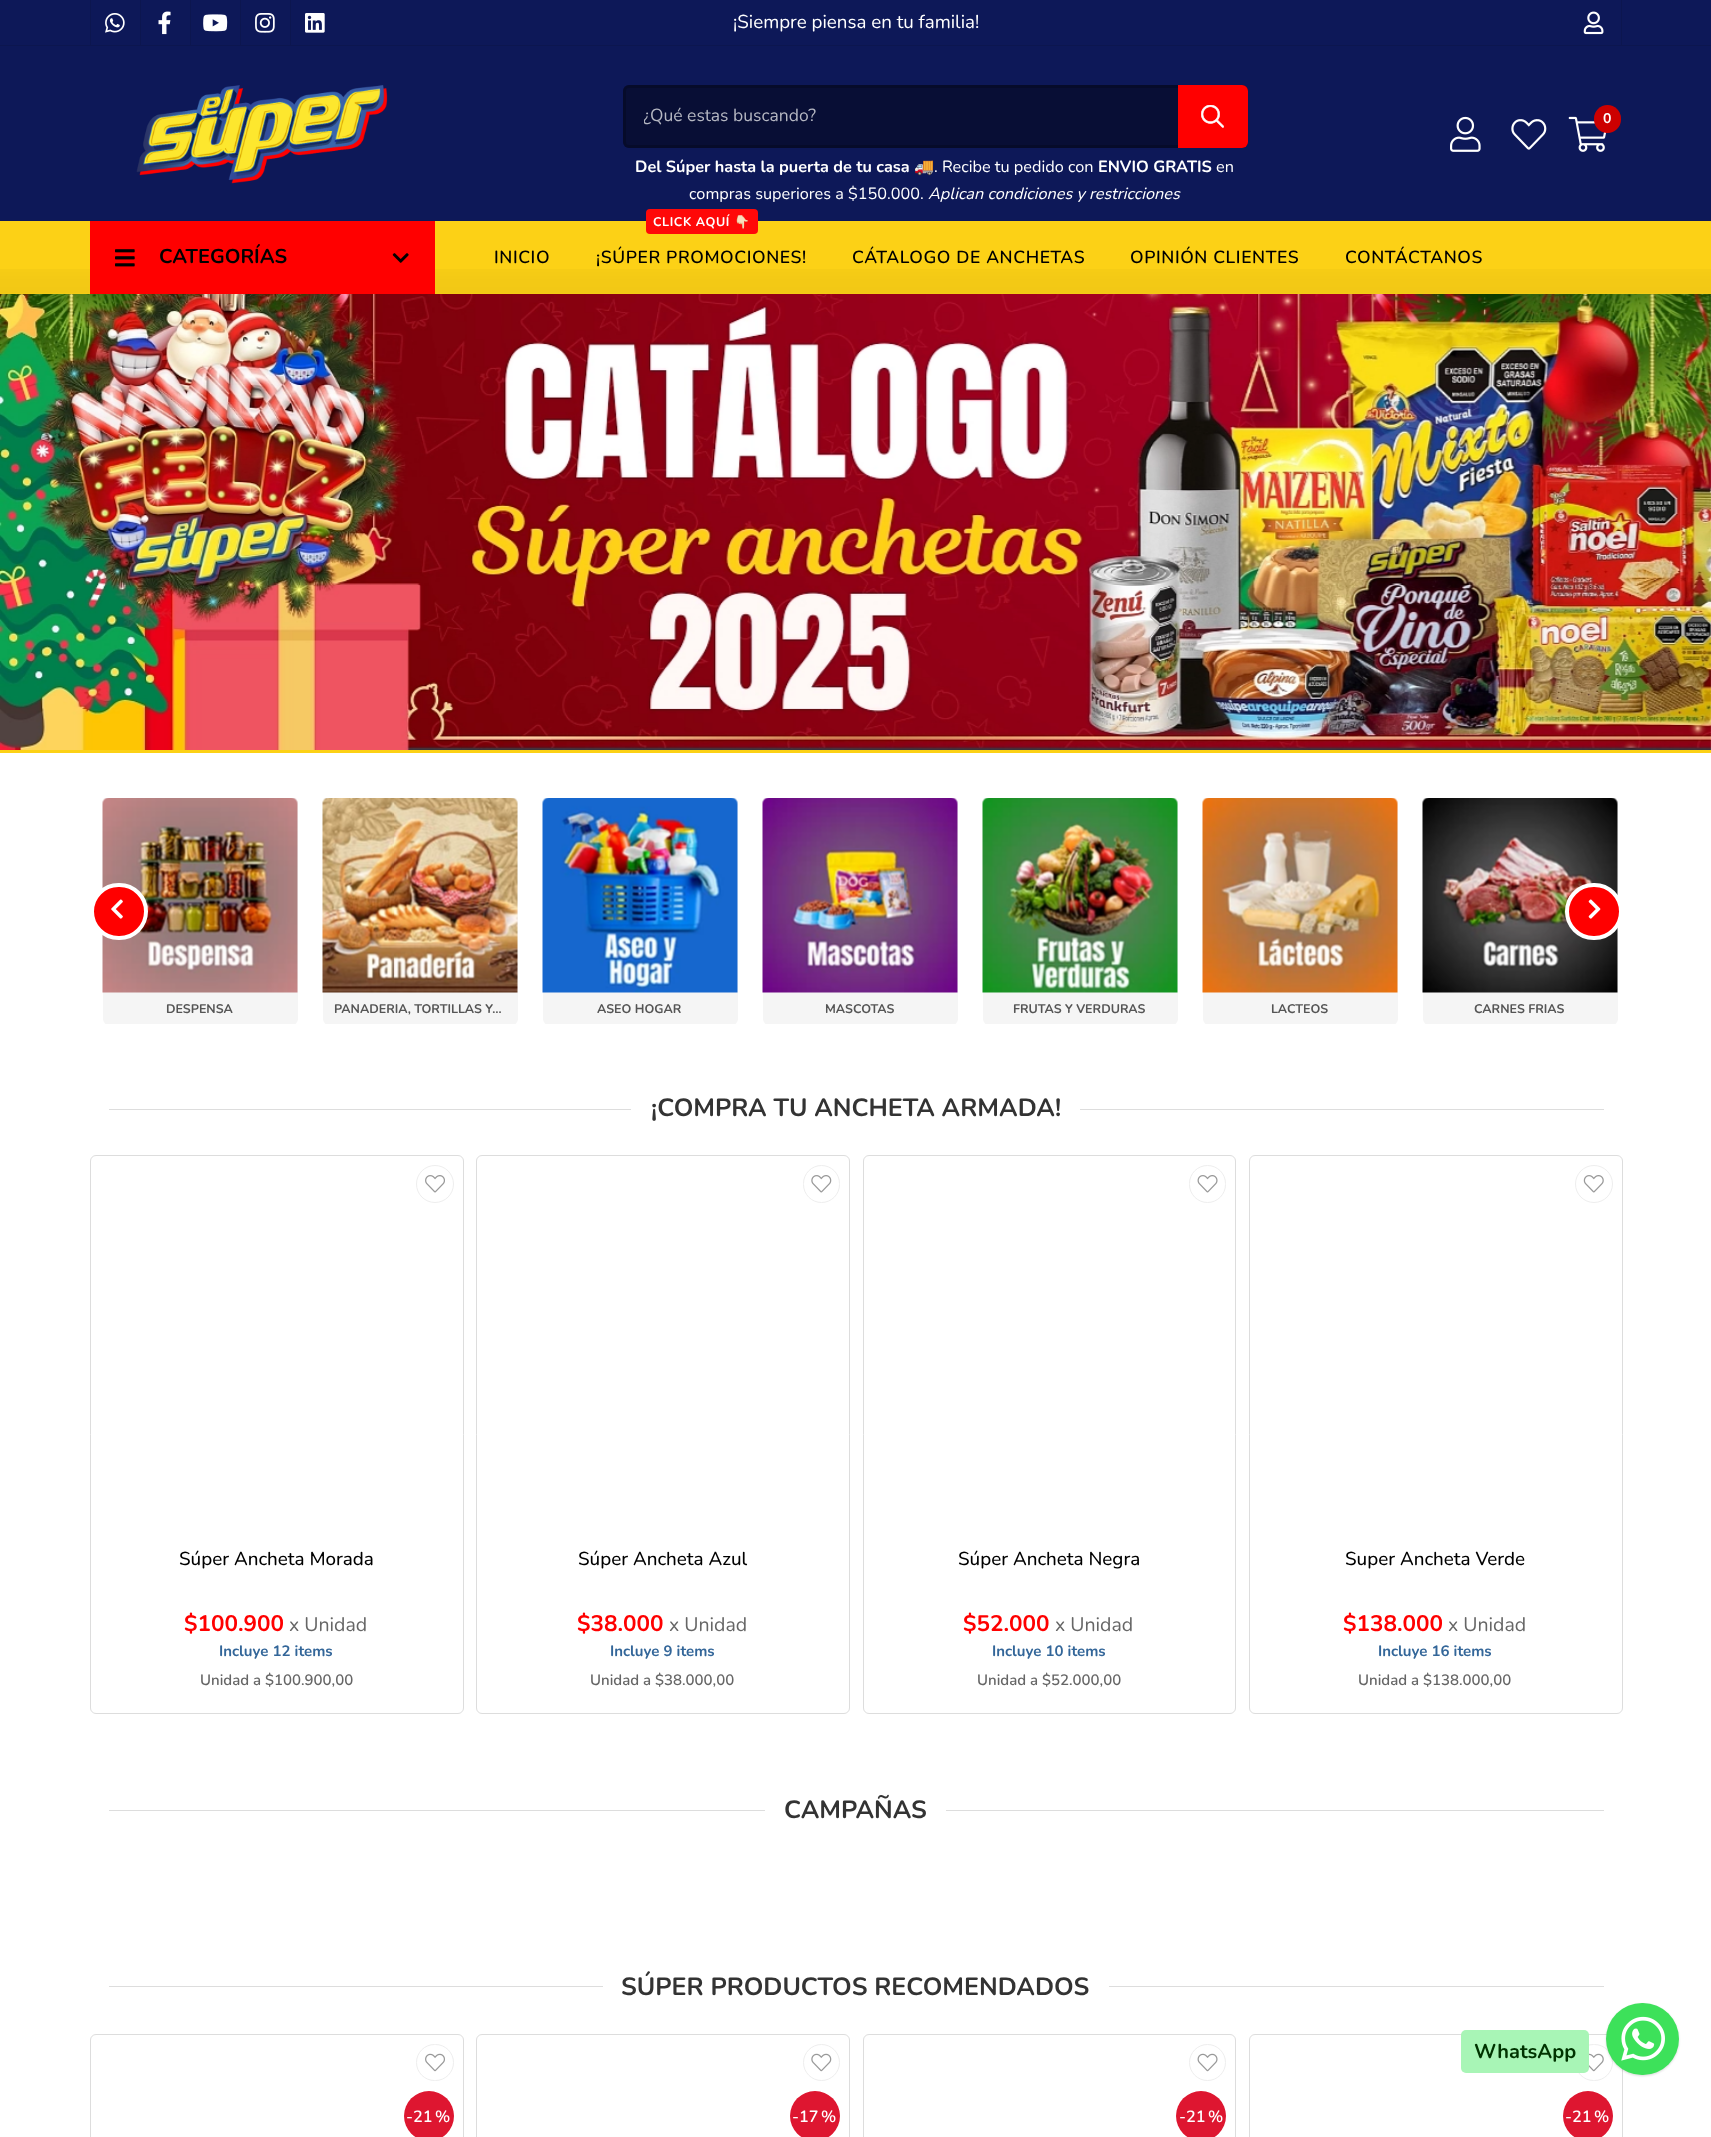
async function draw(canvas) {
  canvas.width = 1711
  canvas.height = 2137
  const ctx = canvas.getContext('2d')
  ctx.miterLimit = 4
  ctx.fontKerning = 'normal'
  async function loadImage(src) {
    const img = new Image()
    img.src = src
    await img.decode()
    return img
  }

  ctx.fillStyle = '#fff'
  ctx.fillRect(0, 0, 1711, 2137)
  ctx.fillStyle = '#0d1858'
  ctx.fillRect(0, 0, 1711, 221)
  ctx.fillStyle = '#0c164f'
  ctx.fillRect(0, 45, 1711, 1)
  ctx.fillRect(90, 0, 1, 45)
  ctx.drawImage(await loadImage('image0.png'), 105, 13, 20, 20)
  ctx.fillRect(140, 0, 1, 45)
  ctx.drawImage(await loadImage('image1.png'), 158, 11, 13, 24)
  ctx.fillRect(190, 0, 1, 45)
  ctx.drawImage(await loadImage('image2.png'), 203, 14, 25, 18)
  ctx.fillRect(240, 0, 1, 45)
  ctx.drawImage(await loadImage('image3.png'), 255, 13, 20, 20)
  ctx.fillRect(290, 0, 1, 45)
  ctx.drawImage(await loadImage('image4.png'), 305, 13, 20, 20)
  ctx.font = '18.75px Nunito'
  ctx.fillStyle = '#fff'
  ctx.fillText('¡Siempre piensa en tu familia!', 733, 28)
  ctx.fillStyle = '#0c164f'
  ctx.fillRect(1621, 0, 1, 45)
  ctx.drawImage(await loadImage('image5.png'), 1583, 11, 21, 24)
  ctx.drawImage(await loadImage('image6.png'), 136, 85, 252, 99)
  ctx.fillStyle = '#080e35'
  ctx.beginPath()
  ctx.roundRect(623, 85, 625, 63, 6)
  ctx.fill()
  ctx.beginPath()
  ctx.roundRect(624.5, 86.5, 622, 60, 4.5)
  ctx.strokeStyle = '#00000033'
  ctx.lineWidth = 3
  ctx.stroke()
  ctx.save()
  ctx.beginPath()
  ctx.rect(644, 104, 569, 24)
  ctx.clip()
  ctx.font = '17.5px Nunito'
  ctx.fillStyle = '#b5b7c2'
  ctx.fillText('¿Qué estas buscando?', 643, 121)
  ctx.restore()
  ctx.fillStyle = '#f00'
  ctx.beginPath()
  ctx.roundRect(1178, 85, 70, 63, [0, 6, 6, 0])
  ctx.fill()
  ctx.drawImage(await loadImage('image7.png'), 1201, 105, 23, 23)
  ctx.font = 'bold 16.25px Nunito'
  ctx.fillStyle = '#fff'
  ctx.fillText('Del Súper hasta la puerta de tu casa', 635, 172)
  ctx.font = '16.25px Noto Color Emoji'
  ctx.fillText('🚚', 914, 172)
  ctx.font = '16.25px Nunito'
  ctx.fillText('. Recibe tu pedido con', 934, 172)
  ctx.font = 'bold 16.25px Nunito'
  ctx.fillText('ENVIO GRATIS', 1098, 172)
  ctx.font = '16.25px Nunito'
  ctx.fillText('en', 1216, 172)
  ctx.fillText('compras superiores a $150.000.', 689, 199)
  ctx.font = 'italic 16.25px Nunito'
  ctx.fillText('Aplican condiciones y restricciones', 928, 199)
  ctx.drawImage(await loadImage('image8.png'), 1450, 116, 31, 36)
  ctx.drawImage(await loadImage('image9.png'), 1511, 119, 36, 31)
  ctx.drawImage(await loadImage('image10.png'), 1568, 116, 39, 36)
  ctx.fillStyle = '#c00'
  ctx.beginPath()
  ctx.roundRect(1594, 105, 27, 28, 13.5)
  ctx.fill()
  ctx.font = 'bold 14px Nunito'
  ctx.fillStyle = '#fff'
  ctx.fillText('0', 1603, 123)
  ctx.fillStyle = '#fcd116'
  ctx.fillRect(0, 221, 1711, 73)
  ctx.drawImage(await loadImage('image11.png'), 0, 269, 1711, 25)
  ctx.fillStyle = '#f00'
  ctx.fillRect(90, 221, 345, 73)
  ctx.drawImage(await loadImage('image12.png'), 115, 249, 20, 18)
  ctx.font = 'bold 20px Nunito'
  ctx.fillStyle = '#000'
  ctx.fillText('CATEGORÍAS', 159, 263)
  ctx.drawImage(await loadImage('image13.png'), 392, 253, 17, 10)
  ctx.letterSpacing = '0.6px'
  ctx.font = '600 17.5px Nunito'
  ctx.fillText('INICIO', 494, 263)
  ctx.fillStyle = '#ff0808'
  ctx.beginPath()
  ctx.roundRect(646, 209, 112, 25, 4)
  ctx.fill()
  ctx.font = 'bold 12.5px Nunito'
  ctx.fillStyle = '#fff'
  ctx.fillText('CLICK AQUÍ', 653, 226)
  ctx.font = 'bold 12.5px Noto Color Emoji'
  ctx.fillText('👇🏻', 734, 226)
  ctx.font = '600 17.5px Nunito'
  ctx.fillStyle = '#000'
  ctx.fillText('¡SÚPER PROMOCIONES!', 596, 263)
  ctx.fillText('CÁTALOGO DE ANCHETAS', 852, 263)
  ctx.fillText('OPINIÓN CLIENTES', 1130, 263)
  ctx.fillText('CONTÁCTANOS', 1345, 263)
  ctx.fillStyle = '#fcd116'
  ctx.fillRect(0, 750, 1711, 3)
  ctx.drawImage(await loadImage('image14.png'), 0, 294, 1711, 456)
  ctx.save()
  ctx.beginPath()
  ctx.rect(90, 798, 1533, 226)
  ctx.clip()
  ctx.fillStyle = '#f5f5f5'
  ctx.beginPath()
  ctx.roundRect(103, 798, 195, 227, 6)
  ctx.fill()
  ctx.restore()
  ctx.drawImage(await loadImage('image17.png'), 102, 798, 196, 195)
  ctx.fillStyle = '#f00'
  ctx.beginPath()
  ctx.roundRect(92, 885, 54, 53, 26.5)
  ctx.fill()
  ctx.strokeStyle = '#fff'
  ctx.lineWidth = 4
  ctx.stroke()
  ctx.drawImage(await loadImage('image15.png'), 111, 899, 12, 20)
  ctx.save()
  ctx.beginPath()
  ctx.rect(90, 798, 1533, 226)
  ctx.clip()
  ctx.fillStyle = '#f5f5f5'
  ctx.beginPath()
  ctx.roundRect(1423, 798, 195, 227, 6)
  ctx.fill()
  ctx.restore()
  ctx.drawImage(await loadImage('image23.png'), 1422, 798, 196, 195)
  ctx.beginPath()
  ctx.roundRect(1567, 885, 54, 53, 26.5)
  ctx.fill()
  ctx.stroke()
  ctx.drawImage(await loadImage('image16.png'), 1588, 899, 13, 20)
  ctx.letterSpacing = '0px'
  ctx.font = 'bold 12.5px Nunito'
  ctx.fillStyle = '#555'
  ctx.fillText('DESPENSA', 166, 1013)
  ctx.save()
  ctx.beginPath()
  ctx.rect(90, 798, 1533, 226)
  ctx.clip()
  ctx.fillStyle = '#f5f5f5'
  ctx.beginPath()
  ctx.roundRect(323, 798, 195, 227, 6)
  ctx.fill()
  ctx.restore()
  ctx.drawImage(await loadImage('image18.png'), 322, 798, 196, 195)
  ctx.fillText('PANADERIA, TORTILLAS Y…', 334, 1013)
  ctx.save()
  ctx.beginPath()
  ctx.rect(90, 798, 1533, 226)
  ctx.clip()
  ctx.fillStyle = '#f5f5f5'
  ctx.beginPath()
  ctx.roundRect(543, 798, 195, 227, 6)
  ctx.fill()
  ctx.restore()
  ctx.drawImage(await loadImage('image19.png'), 542, 798, 196, 195)
  ctx.fillText('ASEO HOGAR', 597, 1013)
  ctx.save()
  ctx.beginPath()
  ctx.rect(90, 798, 1533, 226)
  ctx.clip()
  ctx.fillStyle = '#f5f5f5'
  ctx.beginPath()
  ctx.roundRect(763, 798, 195, 227, 6)
  ctx.fill()
  ctx.restore()
  ctx.drawImage(await loadImage('image20.png'), 762, 798, 196, 195)
  ctx.fillText('MASCOTAS', 825, 1013)
  ctx.save()
  ctx.beginPath()
  ctx.rect(90, 798, 1533, 226)
  ctx.clip()
  ctx.fillStyle = '#f5f5f5'
  ctx.beginPath()
  ctx.roundRect(983, 798, 195, 227, 6)
  ctx.fill()
  ctx.restore()
  ctx.drawImage(await loadImage('image21.png'), 982, 798, 196, 195)
  ctx.fillText('FRUTAS Y VERDURAS', 1013, 1013)
  ctx.save()
  ctx.beginPath()
  ctx.rect(90, 798, 1533, 226)
  ctx.clip()
  ctx.fillStyle = '#f5f5f5'
  ctx.beginPath()
  ctx.roundRect(1203, 798, 195, 227, 6)
  ctx.fill()
  ctx.restore()
  ctx.drawImage(await loadImage('image22.png'), 1202, 798, 196, 195)
  ctx.fillText('LACTEOS', 1271, 1013)
  ctx.fillText('CARNES FRIAS', 1474, 1013)
  ctx.fillStyle = '#ddd'
  ctx.fillRect(109, 1109, 522, 1)
  ctx.font = 'bold 25px Nunito'
  ctx.fillStyle = '#333'
  ctx.fillText('¡COMPRA TU ANCHETA ARMADA!', 651, 1116)
  ctx.fillStyle = '#ddd'
  ctx.fillRect(1080, 1109, 524, 1)
  ctx.beginPath()
  ctx.roundRect(90.5, 1155.5, 373, 558, 5.5)
  ctx.strokeStyle = '#ddd'
  ctx.lineWidth = 1
  ctx.stroke()
  ctx.beginPath()
  ctx.arc(435, 1184, 18.5, 0, 2 * Math.PI)
  ctx.strokeStyle = '#eee'
  ctx.stroke()
  ctx.drawImage(await loadImage('image24.png'), 425, 1175, 20, 18)
  ctx.font = '500 18.75px Nunito'
  ctx.fillStyle = '#000'
  ctx.fillText('Súper Ancheta Morada', 179, 1565)
  ctx.font = 'bold 22.5px Nunito'
  ctx.fillStyle = '#f00'
  ctx.fillText('$100.900', 184, 1631)
  ctx.font = '19.5px Nunito'
  ctx.fillStyle = '#666'
  ctx.fillText('x Unidad', 289, 1631)
  ctx.font = 'bold 15px Nunito'
  ctx.fillStyle = '#369'
  ctx.fillText('Incluye 12 items', 219, 1656)
  ctx.font = '600 15px Nunito'
  ctx.fillStyle = '#666'
  ctx.fillText('Unidad a $100.900,00', 200, 1685)
  ctx.beginPath()
  ctx.roundRect(476.5, 1155.5, 373, 558, 5.5)
  ctx.strokeStyle = '#ddd'
  ctx.stroke()
  ctx.beginPath()
  ctx.roundRect(803.5, 1165.5, 36, 37, 18)
  ctx.strokeStyle = '#eee'
  ctx.stroke()
  ctx.drawImage(await loadImage('image25.png'), 811, 1175, 21, 18)
  ctx.font = '500 18.75px Nunito'
  ctx.fillStyle = '#000'
  ctx.fillText('Súper Ancheta Azul', 578, 1565)
  ctx.font = 'bold 22.5px Nunito'
  ctx.fillStyle = '#f00'
  ctx.fillText('$38.000', 577, 1631)
  ctx.font = '19.5px Nunito'
  ctx.fillStyle = '#666'
  ctx.fillText('x Unidad', 669, 1631)
  ctx.font = 'bold 15px Nunito'
  ctx.fillStyle = '#369'
  ctx.fillText('Incluye 9 items', 610, 1656)
  ctx.font = '600 15px Nunito'
  ctx.fillStyle = '#666'
  ctx.fillText('Unidad a $38.000,00', 590, 1685)
  ctx.beginPath()
  ctx.roundRect(863.5, 1155.5, 372, 558, 5.5)
  ctx.strokeStyle = '#ddd'
  ctx.stroke()
  ctx.beginPath()
  ctx.roundRect(1189.5, 1165.5, 36, 37, 18)
  ctx.strokeStyle = '#eee'
  ctx.stroke()
  ctx.drawImage(await loadImage('image26.png'), 1197, 1175, 21, 18)
  ctx.font = '500 18.75px Nunito'
  ctx.fillStyle = '#000'
  ctx.fillText('Súper Ancheta Negra', 958, 1565)
  ctx.font = 'bold 22.5px Nunito'
  ctx.fillStyle = '#f00'
  ctx.fillText('$52.000', 963, 1631)
  ctx.font = '19.5px Nunito'
  ctx.fillStyle = '#666'
  ctx.fillText('x Unidad', 1055, 1631)
  ctx.font = 'bold 15px Nunito'
  ctx.fillStyle = '#369'
  ctx.fillText('Incluye 10 items', 992, 1656)
  ctx.font = '600 15px Nunito'
  ctx.fillStyle = '#666'
  ctx.fillText('Unidad a $52.000,00', 977, 1685)
  ctx.beginPath()
  ctx.roundRect(1249.5, 1155.5, 373, 558, 5.5)
  ctx.strokeStyle = '#ddd'
  ctx.stroke()
  ctx.beginPath()
  ctx.arc(1594, 1184, 18.5, 0, 2 * Math.PI)
  ctx.strokeStyle = '#eee'
  ctx.stroke()
  ctx.drawImage(await loadImage('image27.png'), 1583, 1175, 21, 18)
  ctx.font = '500 18.75px Nunito'
  ctx.fillStyle = '#000'
  ctx.fillText('Super Ancheta Verde', 1345, 1565)
  ctx.font = 'bold 22.5px Nunito'
  ctx.fillStyle = '#f00'
  ctx.fillText('$138.000', 1343, 1631)
  ctx.font = '19.5px Nunito'
  ctx.fillStyle = '#666'
  ctx.fillText('x Unidad', 1448, 1631)
  ctx.font = 'bold 15px Nunito'
  ctx.fillStyle = '#369'
  ctx.fillText('Incluye 16 items', 1378, 1656)
  ctx.font = '600 15px Nunito'
  ctx.fillStyle = '#666'
  ctx.fillText('Unidad a $138.000,00', 1358, 1685)
  ctx.fillStyle = '#ddd'
  ctx.fillRect(109, 1810, 656, 1)
  ctx.font = 'bold 25px Nunito'
  ctx.fillStyle = '#333'
  ctx.fillText('CAMPAÑAS', 784, 1818)
  ctx.fillStyle = '#ddd'
  ctx.fillRect(946, 1810, 658, 1)
  ctx.fillRect(109, 1986, 494, 1)
  ctx.fillStyle = '#333'
  ctx.fillText('SÚPER PRODUCTOS RECOMENDADOS', 621, 1995)
  ctx.fillStyle = '#ddd'
  ctx.fillRect(1109, 1986, 495, 1)
  ctx.beginPath()
  ctx.roundRect(90.5, 2034.5, 373, 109, 5.5)
  ctx.strokeStyle = '#ddd'
  ctx.stroke()
  ctx.beginPath()
  ctx.roundRect(416.5, 2044.5, 37, 36, 18)
  ctx.strokeStyle = '#eee'
  ctx.stroke()
  ctx.drawImage(await loadImage('image28.png'), 425, 2053, 20, 19)
  ctx.fillStyle = '#de1630'
  ctx.beginPath()
  ctx.arc(429, 2116, 25, 0, 2 * Math.PI)
  ctx.fill()
  ctx.font = '600 16.25px Nunito'
  ctx.fillStyle = '#fff'
  ctx.fillText('-21', 406, 2122)
  ctx.fillText('%', 435, 2122)
  ctx.beginPath()
  ctx.roundRect(476.5, 2034.5, 373, 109, 5.5)
  ctx.strokeStyle = '#ddd'
  ctx.stroke()
  ctx.beginPath()
  ctx.arc(821.5, 2062.5, 18, 0, 2 * Math.PI)
  ctx.strokeStyle = '#eee'
  ctx.stroke()
  ctx.drawImage(await loadImage('image29.png'), 811, 2053, 21, 19)
  ctx.fillStyle = '#de1630'
  ctx.beginPath()
  ctx.arc(815, 2116, 25, 0, 2 * Math.PI)
  ctx.fill()
  ctx.fillStyle = '#fff'
  ctx.fillText('-17', 792, 2122)
  ctx.fillText('%', 821, 2122)
  ctx.beginPath()
  ctx.roundRect(863.5, 2034.5, 372, 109, 5.5)
  ctx.strokeStyle = '#ddd'
  ctx.stroke()
  ctx.beginPath()
  ctx.arc(1207.5, 2062.5, 18, 0, 2 * Math.PI)
  ctx.strokeStyle = '#eee'
  ctx.stroke()
  ctx.drawImage(await loadImage('image30.png'), 1197, 2053, 21, 19)
  ctx.fillStyle = '#de1630'
  ctx.beginPath()
  ctx.arc(1201, 2116, 25, 0, 2 * Math.PI)
  ctx.fill()
  ctx.fillStyle = '#fff'
  ctx.fillText('-21', 1179, 2122)
  ctx.fillText('%', 1208, 2122)
  ctx.beginPath()
  ctx.roundRect(1249.5, 2034.5, 373, 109, 5.5)
  ctx.strokeStyle = '#ddd'
  ctx.stroke()
  ctx.beginPath()
  ctx.roundRect(1575.5, 2044.5, 37, 36, 18)
  ctx.strokeStyle = '#eee'
  ctx.stroke()
  ctx.drawImage(await loadImage('image31.png'), 1589, 2053, 15, 19)
  ctx.fillStyle = '#de1630'
  ctx.beginPath()
  ctx.arc(1588, 2116, 25, 0, 2 * Math.PI)
  ctx.fill()
  ctx.fillStyle = '#fff'
  ctx.fillText('-21', 1565, 2122)
  ctx.fillText('%', 1594, 2122)
  ctx.fillStyle = '#a8f5b6'
  ctx.beginPath()
  ctx.roundRect(1461, 2030, 128, 43, 5)
  ctx.fill()
  ctx.font = 'bold 20px Nunito'
  ctx.fillStyle = '#030'
  ctx.fillText('WhatsApp', 1474, 2058)
  ctx.fillStyle = '#00000026'
  ctx.filter = 'blur(1px)'
  ctx.beginPath()
  ctx.roundRect(1606, 2004, 73, 72, 36)
  ctx.fill()
  ctx.filter = 'none'
  ctx.fillStyle = '#3de15a'
  ctx.beginPath()
  ctx.roundRect(1606, 2003, 73, 72, 36)
  ctx.fill()
  ctx.drawImage(await loadImage('image32.png'), 1621, 2016, 44, 45)
}

draw(document.querySelector('canvas'))
